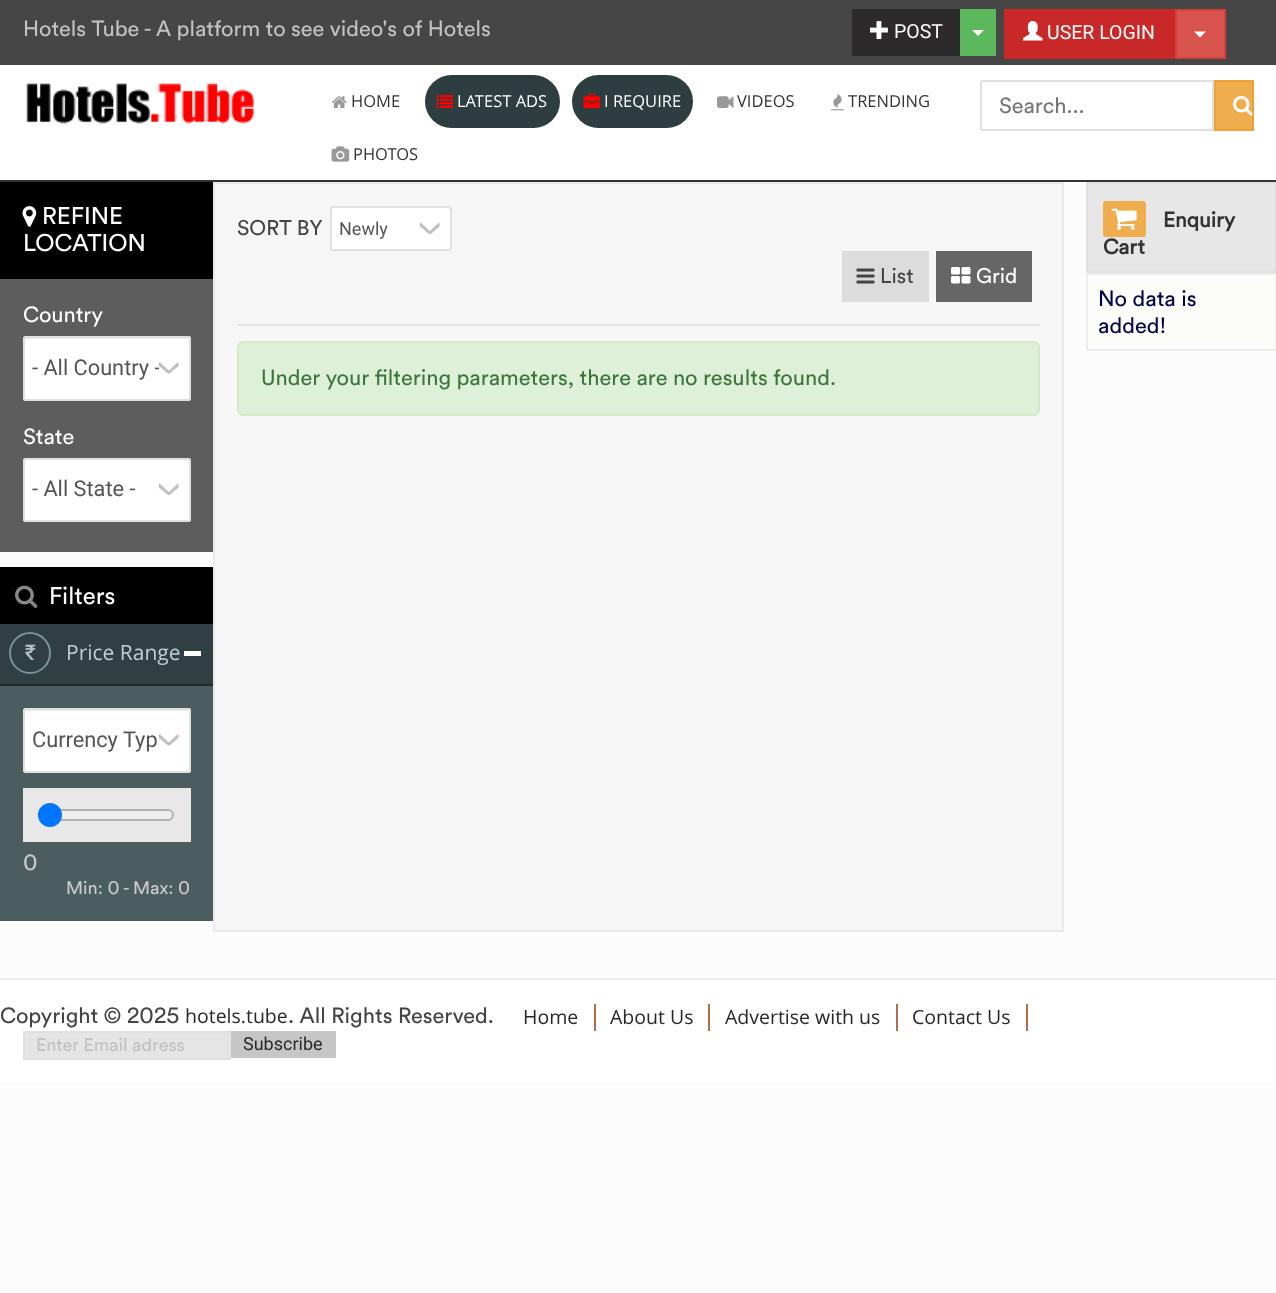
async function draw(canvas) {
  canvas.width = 1276
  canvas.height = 1293
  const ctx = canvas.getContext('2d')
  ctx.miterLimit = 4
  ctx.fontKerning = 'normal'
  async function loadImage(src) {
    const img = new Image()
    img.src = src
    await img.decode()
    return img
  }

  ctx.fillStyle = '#fcfcfc'
  ctx.fillRect(0, 0, 1276, 1293)
  ctx.fillStyle = '#474646'
  ctx.fillRect(0, 0, 1276, 65)
  ctx.font = '21.75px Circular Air'
  ctx.fillStyle = '#c2c2c2'
  ctx.fillText('Hotels Tube - A platform to see video\'s of Hotels', 23, 36)
  ctx.fillStyle = '#2c2a2a'
  ctx.fillRect(852, 9, 108, 47)
  ctx.drawImage(await loadImage('image0.png'), 870, 21, 18, 18)
  ctx.font = '19.5px Roboto'
  ctx.fillStyle = '#fff'
  ctx.fillText('POST', 894, 38)
  ctx.fillStyle = '#5cb85c'
  ctx.fillRect(960, 9, 36, 47)
  ctx.fillStyle = '#fff'
  ctx.beginPath()
  ctx.moveTo(972, 30)
  ctx.lineTo(984, 30)
  ctx.lineTo(978, 36)
  ctx.closePath()
  ctx.fill()
  ctx.fillStyle = '#c82828'
  ctx.fillRect(1004, 9, 171, 50)
  ctx.drawImage(await loadImage('image1.png'), 1023, 21, 20, 20)
  ctx.fillStyle = '#fff'
  ctx.fillText('USER LOGIN', 1047, 39)
  ctx.fillStyle = '#d9534f'
  ctx.beginPath()
  ctx.rect(1176, 10, 49, 48)
  ctx.fill()
  ctx.strokeStyle = '#d43f3a'
  ctx.lineWidth = 2
  ctx.stroke()
  ctx.fillStyle = '#fff'
  ctx.beginPath()
  ctx.moveTo(1194, 31.5)
  ctx.lineTo(1206, 31.5)
  ctx.lineTo(1200, 37.5)
  ctx.closePath()
  ctx.fill()
  ctx.fillRect(0, 65, 1276, 115)
  ctx.fillStyle = '#333'
  ctx.fillRect(0, 180, 1276, 2)
  ctx.drawImage(await loadImage('image2.png'), 26, 83, 228, 41)
  ctx.drawImage(await loadImage('image3.png'), 331, 96, 16, 12)
  ctx.font = '16.5px Open Sans'
  ctx.fillText('HOME', 351, 107)
  ctx.fillStyle = '#2e3d40'
  ctx.beginPath()
  ctx.roundRect(425, 75, 135, 53, 26.5)
  ctx.fill()
  ctx.drawImage(await loadImage('image4.png'), 436, 95, 17, 13)
  ctx.fillStyle = '#fff'
  ctx.fillText('LATEST ADS', 457, 107)
  ctx.fillStyle = '#2e3d40'
  ctx.beginPath()
  ctx.roundRect(572, 75, 121, 53, 26.5)
  ctx.fill()
  ctx.drawImage(await loadImage('image5.png'), 583, 93, 17, 15)
  ctx.fillStyle = '#fff'
  ctx.fillText('I REQUIRE', 604, 107)
  ctx.drawImage(await loadImage('image6.png'), 717, 96, 17, 12)
  ctx.fillStyle = '#333'
  ctx.fillText('VIDEOS', 737, 107)
  ctx.drawImage(await loadImage('image7.png'), 831, 94, 13, 17)
  ctx.fillText('TRENDING', 848, 107)
  ctx.drawImage(await loadImage('image8.png'), 331, 146, 19, 16)
  ctx.fillText('PHOTOS', 353, 160)
  ctx.beginPath()
  ctx.roundRect(981, 81, 232, 49, [2, 0, 0, 2])
  ctx.strokeStyle = '#e0e0e0'
  ctx.stroke()
  ctx.font = '21.75px Circular Air'
  ctx.fillStyle = '#777'
  ctx.fillText('Search...', 999, 113)
  ctx.fillStyle = '#f0ad4e'
  ctx.beginPath()
  ctx.rect(1215, 81, 38, 49)
  ctx.fill()
  ctx.strokeStyle = '#eea236'
  ctx.stroke()
  ctx.drawImage(await loadImage('image9.png'), 1233, 96, 20, 20)
  ctx.fillStyle = '#5d5d5d'
  ctx.fillRect(0, 279, 213, 273)
  ctx.fillStyle = '#000'
  ctx.fillRect(0, 182, 213, 97)
  ctx.drawImage(await loadImage('image10.png'), 22, 206, 15, 21)
  ctx.font = '24px Circular Air'
  ctx.fillStyle = '#fff'
  ctx.fillText('REFINE', 42, 224)
  ctx.fillText('LOCATION', 23, 251)
  ctx.font = '21.75px Circular Air'
  ctx.fillText('Country', 23, 322)
  ctx.beginPath()
  ctx.roundRect(23, 336, 168, 65, 3)
  ctx.fill()
  ctx.drawImage(await loadImage('image11.png'), 159, 361, 20, 13)
  ctx.fillStyle = '#ececec'
  ctx.beginPath()
  ctx.moveTo(26, 339)
  ctx.lineTo(188, 339)
  ctx.lineTo(189, 340)
  ctx.bezierCurveTo(189, 339, 189, 338, 188, 338)
  ctx.lineTo(26, 338)
  ctx.bezierCurveTo(24, 338, 24, 339, 24, 340)
  ctx.closePath()
  ctx.fill()
  ctx.beginPath()
  ctx.roundRect(24, 337, 166, 63, 2)
  ctx.strokeStyle = '#e0e0e0'
  ctx.stroke()
  ctx.save()
  ctx.beginPath()
  ctx.rect(32, 350, 127, 37)
  ctx.clip()
  ctx.font = '21.75px Roboto'
  ctx.fillStyle = '#555'
  ctx.fillText('- All Country -', 32, 375)
  ctx.restore()
  ctx.fillStyle = '#fff'
  ctx.fillText('State', 23, 444)
  ctx.beginPath()
  ctx.roundRect(23, 458, 168, 64, 3)
  ctx.fill()
  ctx.drawImage(await loadImage('image12.png'), 159, 483, 20, 12)
  ctx.fillStyle = '#ececec'
  ctx.beginPath()
  ctx.moveTo(26, 460)
  ctx.lineTo(188, 460)
  ctx.lineTo(189, 462)
  ctx.lineTo(189, 460)
  ctx.bezierCurveTo(189, 460, 188, 459, 188, 459)
  ctx.lineTo(26, 459)
  ctx.bezierCurveTo(25, 459, 24, 460, 24, 460)
  ctx.lineTo(24, 462)
  ctx.bezierCurveTo(24, 461, 25, 460, 26, 460)
  ctx.closePath()
  ctx.fill()
  ctx.beginPath()
  ctx.roundRect(24, 459, 166, 62, 2)
  ctx.stroke()
  ctx.font = '21.75px Roboto'
  ctx.fillStyle = '#555'
  ctx.fillText('- All State -', 32, 496)
  ctx.fillStyle = '#000'
  ctx.fillRect(0, 567, 213, 57)
  ctx.drawImage(await loadImage('image13.png'), 15, 585, 23, 23)
  ctx.font = '24px Circular Air'
  ctx.fillStyle = '#fff'
  ctx.fillText('Filters', 49, 604)
  ctx.fillStyle = '#303f42'
  ctx.fillRect(0, 624, 213, 60)
  ctx.fillStyle = '#21292b'
  ctx.fillRect(0, 684, 213, 2)
  ctx.beginPath()
  ctx.arc(30, 653, 20, 0, 2 * Math.PI)
  ctx.strokeStyle = '#78949a'
  ctx.stroke()
  ctx.drawImage(await loadImage('image14.png'), 25, 644, 11, 16)
  ctx.font = '21px Open Sans'
  ctx.fillStyle = '#bed0d4'
  ctx.fillText('Price Range', 66, 660)
  ctx.fillStyle = '#fff'
  ctx.fillRect(184, 651, 17, 5)
  ctx.fillStyle = '#4c5d60'
  ctx.fillRect(0, 686, 213, 235)
  ctx.fillStyle = '#fff'
  ctx.beginPath()
  ctx.roundRect(23, 708, 168, 65, 3)
  ctx.fill()
  ctx.drawImage(await loadImage('image11.png'), 159, 733, 20, 13)
  ctx.fillStyle = '#ececec'
  ctx.beginPath()
  ctx.moveTo(26, 711)
  ctx.lineTo(188, 711)
  ctx.lineTo(189, 712)
  ctx.bezierCurveTo(189, 711, 189, 710, 188, 710)
  ctx.lineTo(26, 710)
  ctx.bezierCurveTo(24, 710, 24, 711, 24, 712)
  ctx.closePath()
  ctx.fill()
  ctx.beginPath()
  ctx.roundRect(24, 709, 166, 63, 2)
  ctx.strokeStyle = '#e0e0e0'
  ctx.stroke()
  ctx.font = '21.75px Roboto'
  ctx.fillStyle = '#555'
  ctx.fillText('Currency Typ', 32, 747)
  ctx.fillStyle = '#e8e8e8'
  ctx.fillRect(23, 788, 168, 54)
  ctx.fillStyle = '#efefef'
  ctx.beginPath()
  ctx.roundRect(40, 810, 133, 10, 5)
  ctx.fill()
  ctx.strokeStyle = '#b2b2b2'
  ctx.stroke()
  ctx.fillStyle = '#0075ff'
  ctx.beginPath()
  ctx.arc(50, 815, 12, 0, 2 * Math.PI)
  ctx.fill()
  ctx.font = '21.75px Circular Air'
  ctx.fillStyle = '#ccc'
  ctx.fillText('0', 23, 870)
  ctx.font = '18px Circular Air'
  ctx.fillText('Min: 0 - Max: 0', 66, 894)
  ctx.fillStyle = '#f6f6f6'
  ctx.beginPath()
  ctx.rect(214, 183, 849, 748)
  ctx.fill()
  ctx.strokeStyle = '#e9e9e9'
  ctx.stroke()
  ctx.fillStyle = '#e5e5e5'
  ctx.fillRect(237, 324, 803, 2)
  ctx.font = '21px Circular Air'
  ctx.fillStyle = '#444'
  ctx.fillText('SORT BY', 237, 235)
  ctx.fillStyle = '#fff'
  ctx.beginPath()
  ctx.roundRect(330, 206, 122, 45, 3)
  ctx.fill()
  ctx.drawImage(await loadImage('image15.png'), 420, 222, 20, 12)
  ctx.fillStyle = '#ececec'
  ctx.beginPath()
  ctx.moveTo(333, 208)
  ctx.lineTo(448, 208)
  ctx.bezierCurveTo(449, 208, 450, 209, 450, 210)
  ctx.lineTo(450, 208)
  ctx.bezierCurveTo(450, 208, 449, 207, 448, 207)
  ctx.lineTo(334, 207)
  ctx.bezierCurveTo(333, 207, 332, 208, 332, 208)
  ctx.lineTo(332, 210)
  ctx.bezierCurveTo(332, 209, 332, 208, 333, 208)
  ctx.closePath()
  ctx.fill()
  ctx.beginPath()
  ctx.roundRect(331, 207, 120, 43, 2)
  ctx.strokeStyle = '#e0e0e0'
  ctx.stroke()
  ctx.font = '18px Roboto'
  ctx.fillStyle = '#555'
  ctx.fillText('Newly', 339, 235)
  ctx.fillStyle = '#dcdcdc'
  ctx.fillRect(842, 251, 87, 51)
  ctx.drawImage(await loadImage('image16.png'), 856, 268, 19, 16)
  ctx.font = '21px Circular Air'
  ctx.fillStyle = '#444'
  ctx.fillText('List', 880, 283)
  ctx.fillStyle = '#666'
  ctx.fillRect(936, 251, 96, 51)
  ctx.drawImage(await loadImage('image17.png'), 951, 267, 20, 17)
  ctx.fillStyle = '#fff'
  ctx.fillText('Grid', 976, 283)
  ctx.fillStyle = '#dff0d8'
  ctx.beginPath()
  ctx.roundRect(238, 342, 801, 73, 5)
  ctx.fill()
  ctx.strokeStyle = '#d6e9c6'
  ctx.stroke()
  ctx.font = '21.75px Circular Air'
  ctx.fillStyle = '#3c763d'
  ctx.fillText('Under your filtering parameters, there are no results found.', 261, 385)
  ctx.fillStyle = '#e7e7e7'
  ctx.beginPath()
  ctx.rect(1087, 183, 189, 89)
  ctx.fill()
  ctx.strokeStyle = '#e1e1e1'
  ctx.stroke()
  ctx.fillStyle = '#f0ad4e'
  ctx.beginPath()
  ctx.roundRect(1103, 201, 43, 36, 3)
  ctx.fill()
  ctx.drawImage(await loadImage('image18.png'), 1111, 208, 26, 22)
  ctx.font = 'bold 21px Circular Air'
  ctx.fillStyle = '#333'
  ctx.fillText('Enquiry', 1163, 227)
  ctx.fillText('Cart', 1103, 254)
  ctx.strokeStyle = '#ededed'
  ctx.strokeRect(1087, 274, 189, 76)
  ctx.fillStyle = '#fcfcf8'
  ctx.fillRect(1091, 278, 181, 69)
  ctx.font = '21.75px Circular Air'
  ctx.fillStyle = '#000444'
  ctx.fillText('No data is', 1098, 306)
  ctx.fillText('added!', 1098, 333)
  ctx.fillStyle = '#fff'
  ctx.fillRect(0, 980, 1276, 102)
  ctx.fillStyle = '#ededed'
  ctx.fillRect(0, 978, 1276, 2)
  ctx.fillStyle = '#444'
  ctx.fillText('Copyright © 2025', 0, 1023)
  ctx.font = '19.5px Open Sans'
  ctx.fillStyle = '#282828'
  ctx.fillText('hotels.tube', 185, 1023)
  ctx.font = '21.75px Circular Air'
  ctx.fillStyle = '#444'
  ctx.fillText('. All Rights Reserved.', 288, 1023)
  ctx.fillStyle = '#b06e4b'
  ctx.fillRect(594, 1004, 2, 27)
  ctx.font = '19.5px Open Sans'
  ctx.fillStyle = '#282828'
  ctx.fillText('Home', 523, 1024)
  ctx.fillStyle = '#b06e4b'
  ctx.fillRect(708, 1004, 2, 27)
  ctx.fillStyle = '#282828'
  ctx.fillText('About Us', 610, 1024)
  ctx.fillStyle = '#b06e4b'
  ctx.fillRect(896, 1004, 2, 27)
  ctx.fillStyle = '#282828'
  ctx.fillText('Advertise with us', 725, 1024)
  ctx.fillStyle = '#b06e4b'
  ctx.fillRect(1026, 1004, 2, 27)
  ctx.fillStyle = '#282828'
  ctx.fillText('Contact Us', 912, 1024)
  ctx.fillStyle = '#e5e5e5'
  ctx.fillRect(25, 1033, 206, 25)
  ctx.fillStyle = '#e0e0e0'
  ctx.fillRect(23, 1031, 208, 2)
  ctx.fillRect(23, 1058, 208, 2)
  ctx.fillRect(23, 1031, 2, 28)
  ctx.font = '18px Circular Air'
  ctx.fillStyle = '#c2c2c2'
  ctx.fillText('Enter Email adress', 36, 1051)
  ctx.fillStyle = '#c6c6c6'
  ctx.fillRect(231, 1031, 105, 27)
  ctx.font = '18px Roboto'
  ctx.fillStyle = '#282828'
  ctx.fillText('Subscribe', 243, 1050)
}

draw(document.querySelector('canvas'))
